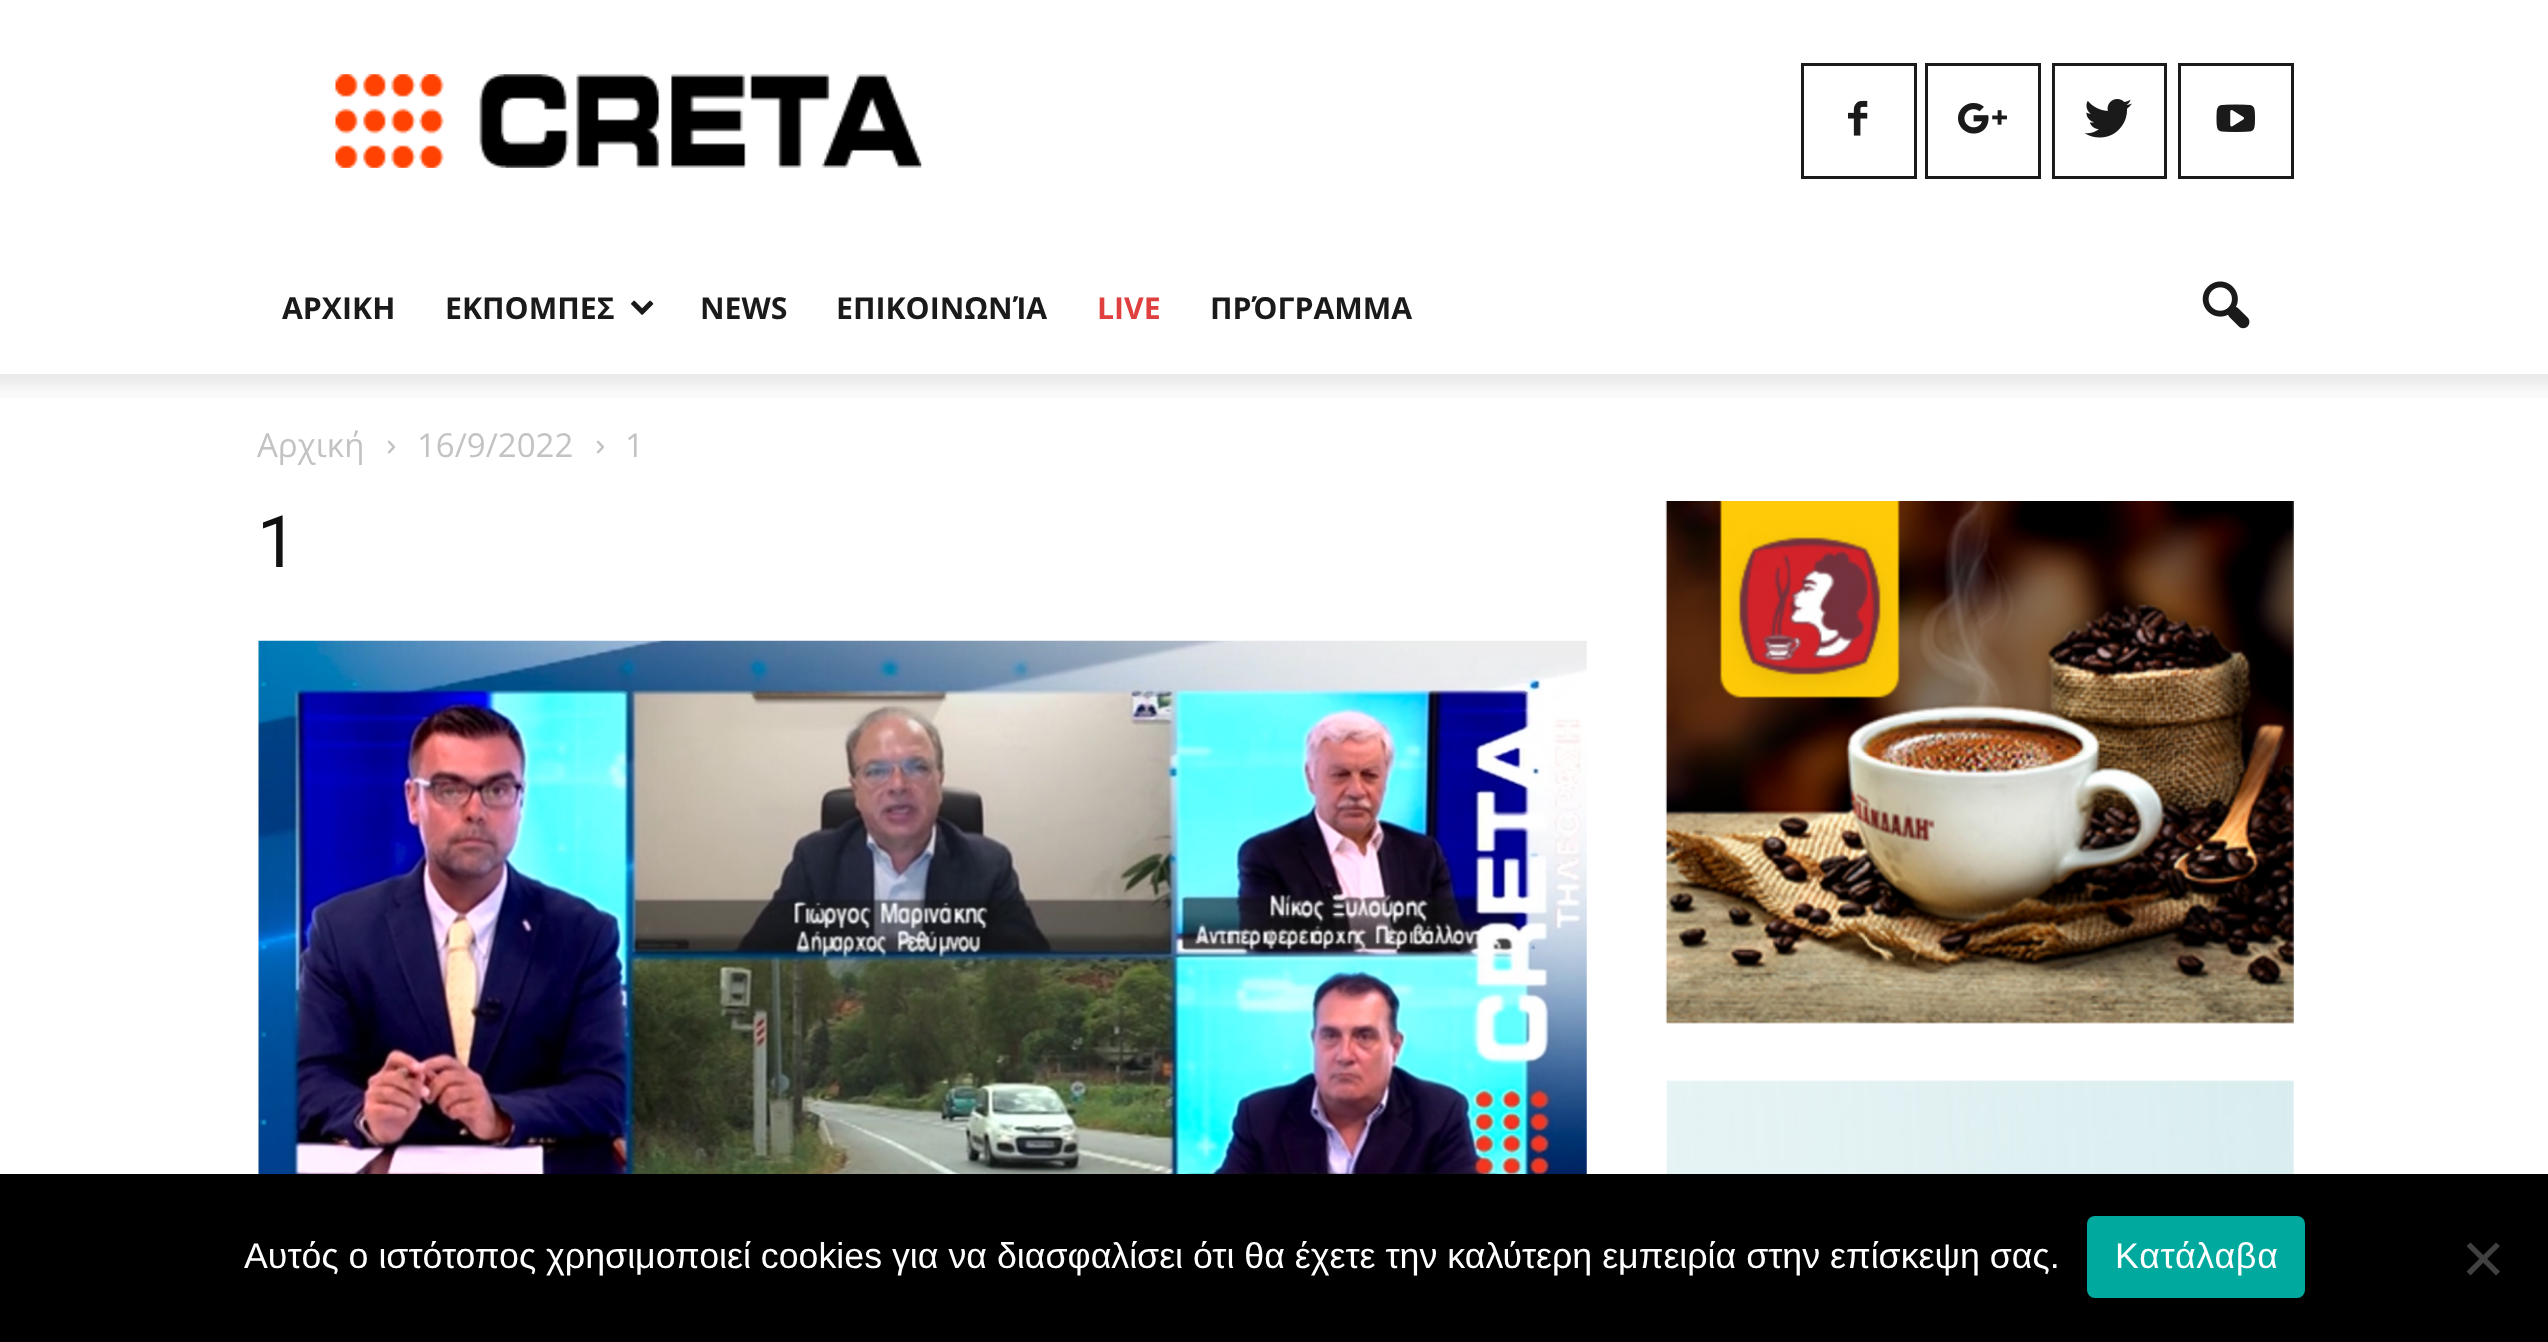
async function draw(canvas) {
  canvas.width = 2548
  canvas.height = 1342
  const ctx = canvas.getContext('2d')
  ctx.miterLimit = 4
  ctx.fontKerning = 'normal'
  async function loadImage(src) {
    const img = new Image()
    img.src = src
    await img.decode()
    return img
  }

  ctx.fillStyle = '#fff'
  ctx.fillRect(0, 0, 2548, 1342)
  ctx.drawImage(await loadImage('image0.png'), 335, 74, 587, 94)
  ctx.strokeStyle = '#1a1a1a'
  ctx.lineWidth = 3
  ctx.strokeRect(1802.5, 64.5, 113, 113)
  ctx.drawImage(await loadImage('image1.png'), 1848, 100, 20, 36)
  ctx.strokeRect(1926.5, 64.5, 113, 113)
  ctx.drawImage(await loadImage('image2.png'), 1958, 103, 49, 31)
  ctx.strokeRect(2053.5, 64.5, 112, 113)
  ctx.fillStyle = '#ffffff08'
  ctx.fillRect(2054, 66, 1, 110)
  ctx.drawImage(await loadImage('image3.png'), 2084, 99, 48, 39)
  ctx.strokeRect(2179.5, 64.5, 113, 113)
  ctx.drawImage(await loadImage('image4.png'), 2216, 104, 39, 28)
  ctx.font = 'bold 30.25px Open Sans'
  ctx.fillStyle = '#1a1a1a'
  ctx.fillText('ΑΡΧΙΚΗ', 282, 319)
  ctx.fillText('ΕΚΠΟΜΠΕΣ', 445, 319)
  ctx.drawImage(await loadImage('image5.png'), 631, 300, 23, 15)
  ctx.fillText('NEWS', 700, 319)
  ctx.fillText('ΕΠΙΚΟΙΝΩΝΊΑ', 836, 319)
  ctx.fillStyle = '#df3f3f'
  ctx.fillText('LIVE', 1097, 319)
  ctx.fillStyle = '#1a1a1a'
  ctx.fillText('ΠΡΌΓΡΑΜΜΑ', 1210, 319)
  ctx.drawImage(await loadImage('image6.png'), 2202, 281, 48, 48)
  ctx.drawImage(await loadImage('image7.png'), 0, 374, 2548, 24)
  ctx.font = '33px Open Sans'
  ctx.fillStyle = '#c3c3c3'
  ctx.fillText('Αρχική', 257, 457)
  ctx.drawImage(await loadImage('image8.png'), 387, 440, 9, 14)
  ctx.fillText('16/9/2022', 417, 457)
  ctx.drawImage(await loadImage('image8.png'), 596, 440, 9, 14)
  ctx.fillText('1', 625, 457)
  ctx.font = '72px Roboto'
  ctx.fillStyle = '#111'
  ctx.fillText('1', 257, 567)
  ctx.drawImage(await loadImage('image9.png'), 258, 640, 1329, 534)
  ctx.drawImage(await loadImage('image10.png'), 1665, 501, 629, 523)
  ctx.drawImage(await loadImage('image11.png'), 1666, 1080, 628, 94)
  ctx.fillStyle = '#000'
  ctx.fillRect(0, 1174, 2548, 168)
  ctx.font = '35.75px Liberation Sans'
  ctx.fillStyle = '#fff'
  ctx.fillText('Αυτός ο ιστότοπος χρησιμοποιεί cookies για να διασφαλίσει ότι θα έχετε την καλύτερη εμπειρία στην επίσκεψη σας.', 244, 1268)
  ctx.fillStyle = '#00a99d'
  ctx.beginPath()
  ctx.roundRect(2087, 1216, 218, 82, 8)
  ctx.fill()
  ctx.letterSpacing = '0.75px'
  ctx.fillStyle = '#fff'
  ctx.fillText('Κατάλαβα', 2115, 1268)
  ctx.fillStyle = '#404040'
  ctx.beginPath()
  ctx.moveTo(2496, 1242.5)
  ctx.lineTo(2500, 1246)
  ctx.lineTo(2470.5, 1275.5)
  ctx.lineTo(2466.5, 1271.5)
  ctx.closePath()
  ctx.fill()
  ctx.beginPath()
  ctx.moveTo(2466.5, 1246)
  ctx.lineTo(2470.5, 1242.5)
  ctx.lineTo(2500, 1271.5)
  ctx.lineTo(2496, 1275.5)
  ctx.closePath()
  ctx.fill()
}

draw(document.querySelector('canvas'))
